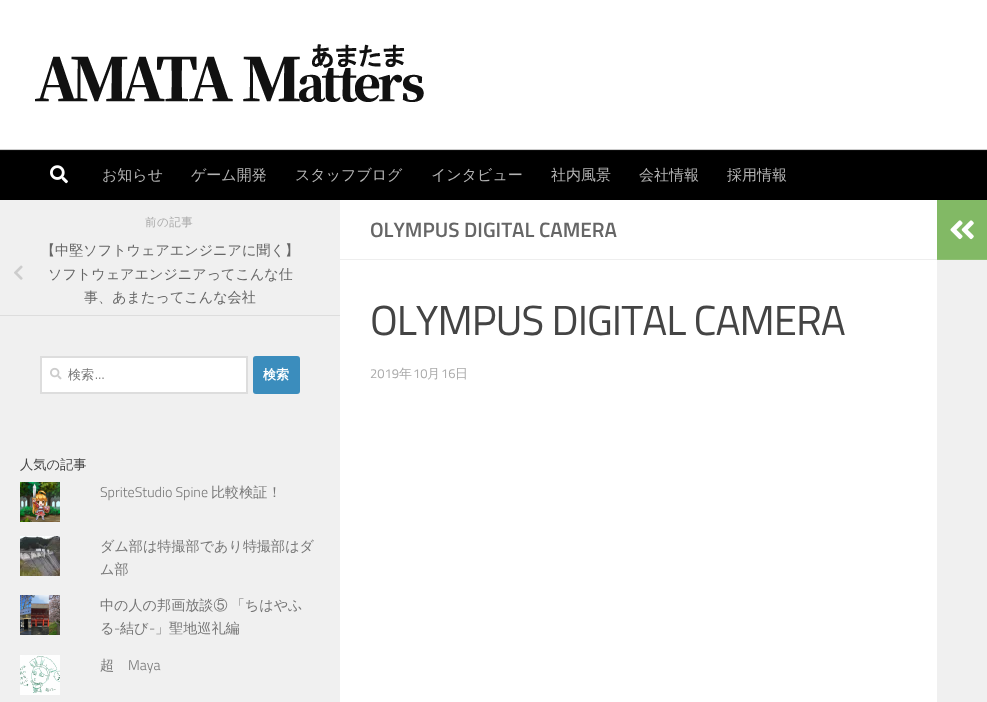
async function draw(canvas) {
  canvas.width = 987
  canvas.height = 702
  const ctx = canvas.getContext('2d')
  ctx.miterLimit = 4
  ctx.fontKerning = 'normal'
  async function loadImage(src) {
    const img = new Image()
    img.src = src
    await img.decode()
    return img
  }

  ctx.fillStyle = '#fff'
  ctx.fillRect(0, 0, 987, 702)
  ctx.drawImage(await loadImage('image0.png'), 35, 44, 389, 58)
  ctx.fillStyle = '#ccc'
  ctx.fillRect(0, 149, 987, 1)
  ctx.fillStyle = '#000'
  ctx.fillRect(0, 151, 987, 49)
  ctx.fillStyle = '#0d0d0d'
  ctx.fillRect(0, 150, 987, 1)
  ctx.drawImage(await loadImage('image1.png'), 50, 165, 18, 19)
  ctx.font = '500 15px WenQuanYi Zen Hei'
  ctx.fillStyle = '#b3b3b3'
  ctx.fillText('お知らせ', 102, 180)
  ctx.fillText('ゲーム開発', 191, 180)
  ctx.fillText('スタッフブログ', 295, 180)
  ctx.fillText('インタビュー', 431, 180)
  ctx.fillText('社内風景', 551, 180)
  ctx.fillText('会社情報', 639, 180)
  ctx.fillText('採用情報', 727, 180)
  ctx.fillStyle = '#f0f0f0'
  ctx.fillRect(0, 200, 340, 502)
  ctx.letterSpacing = '0.5px'
  ctx.font = '500 11.5px WenQuanYi Zen Hei'
  ctx.fillStyle = '#aaa'
  ctx.fillText('前の記事', 145, 226)
  ctx.fillStyle = '#ddd'
  ctx.fillRect(0, 315, 340, 1)
  ctx.letterSpacing = '0px'
  ctx.font = '500 14.1px WenQuanYi Zen Hei'
  ctx.fillStyle = '#666'
  ctx.fillText('【中堅ソフトウェアエンジニアに聞く】', 41, 255)
  ctx.drawImage(await loadImage('image2.png'), 14, 265, 9, 15)
  ctx.fillText('ソフトウェアエンジニアってこんな仕', 48, 279)
  ctx.fillText('事、あまたってこんな会社', 84, 302)
  ctx.fillStyle = '#fff'
  ctx.beginPath()
  ctx.rect(41, 357, 206, 36)
  ctx.fill()
  ctx.strokeStyle = '#ddd'
  ctx.lineWidth = 2
  ctx.stroke()
  ctx.drawImage(await loadImage('image3.png'), 50, 367, 12, 13)
  ctx.font = '500 13px WenQuanYi Zen Hei'
  ctx.fillStyle = '#777'
  ctx.fillText('検索', 68, 379)
  ctx.font = '13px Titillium'
  ctx.fillText('…', 95, 379)
  ctx.fillStyle = '#3b8dbd'
  ctx.beginPath()
  ctx.roundRect(253, 356, 47, 38, 3)
  ctx.fill()
  ctx.font = 'bold 13px WenQuanYi Zen Hei'
  ctx.fillStyle = '#fff'
  ctx.fillText('検索', 263, 379)
  ctx.font = '500 13.25px WenQuanYi Zen Hei'
  ctx.fillStyle = '#444'
  ctx.fillText('人気の記事', 20, 469)
  ctx.drawImage(await loadImage('image4.png'), 20, 482, 40, 40)
  ctx.font = '300 14.1px Titillium'
  ctx.fillStyle = '#777'
  ctx.fillText('SpriteStudio Spine', 100, 497)
  ctx.font = '500 14.1px WenQuanYi Zen Hei'
  ctx.fillText('比較検証！', 211, 497)
  ctx.drawImage(await loadImage('image5.png'), 20, 536, 40, 40)
  ctx.fillText('ダム部は特撮部であり特撮部はダ', 100, 551)
  ctx.fillText('ム部', 100, 574)
  ctx.drawImage(await loadImage('image6.png'), 20, 595, 40, 40)
  ctx.wordSpacing = '-1px'
  ctx.fillText('中の人の邦画放談⑤ 「ちはやふ', 100, 610)
  ctx.wordSpacing = '0px'
  ctx.fillText('る', 100, 633)
  ctx.font = '300 14.1px Titillium'
  ctx.fillText('-', 114, 633)
  ctx.font = '500 14.1px WenQuanYi Zen Hei'
  ctx.fillText('結び', 120, 633)
  ctx.font = '300 14.1px Titillium'
  ctx.fillText('-', 149, 633)
  ctx.font = '500 14.1px WenQuanYi Zen Hei'
  ctx.fillText('」聖地巡礼編', 155, 633)
  ctx.drawImage(await loadImage('image7.png'), 20, 655, 40, 40)
  ctx.fillText('超', 100, 670)
  ctx.font = '300 14.1px Titillium'
  ctx.fillText('Maya', 128, 670)
  ctx.fillStyle = '#eee'
  ctx.fillRect(340, 259, 597, 1)
  ctx.font = '600 20.75px Titillium'
  ctx.fillStyle = '#666'
  ctx.fillText('OLYMPUS DIGITAL CAMERA', 370, 237)
  ctx.letterSpacing = '-1px'
  ctx.font = '42px Titillium'
  ctx.fillStyle = '#444'
  ctx.fillText('OLYMPUS DIGITAL CAMERA', 370, 335)
  ctx.letterSpacing = '0px'
  ctx.font = '13px Titillium'
  ctx.fillStyle = '#aaa'
  ctx.fillText('2019', 370, 378)
  ctx.font = '500 13px WenQuanYi Zen Hei'
  ctx.fillText('年', 399, 378)
  ctx.font = '13px Titillium'
  ctx.fillText('10', 413, 378)
  ctx.font = '500 13px WenQuanYi Zen Hei'
  ctx.fillText('月', 427, 378)
  ctx.font = '13px Titillium'
  ctx.fillText('16', 441, 378)
  ctx.font = '500 13px WenQuanYi Zen Hei'
  ctx.fillText('日', 455, 378)
  ctx.fillStyle = '#82b965'
  ctx.fillRect(937, 200, 50, 59)
  ctx.fillStyle = '#8fc074'
  ctx.fillRect(937, 259, 50, 1)
  ctx.drawImage(await loadImage('image8.png'), 950, 220, 24, 20)
  ctx.fillStyle = '#f0f0f0'
  ctx.fillRect(937, 260, 50, 442)
}

draw(document.querySelector('canvas'))
